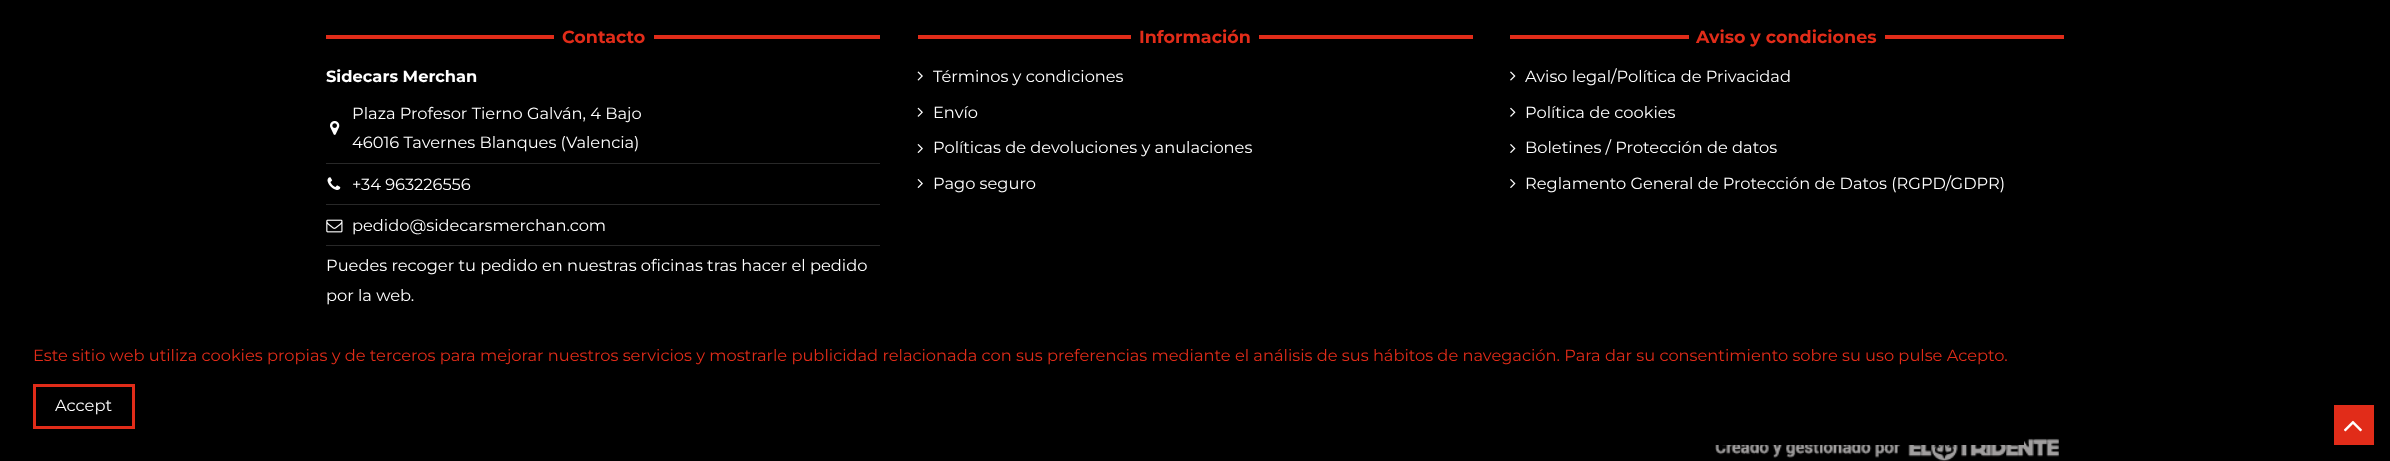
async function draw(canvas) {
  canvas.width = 2390
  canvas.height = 461
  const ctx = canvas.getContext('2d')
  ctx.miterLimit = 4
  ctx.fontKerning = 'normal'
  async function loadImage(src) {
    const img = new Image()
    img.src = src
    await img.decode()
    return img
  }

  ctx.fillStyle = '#000'
  ctx.fillRect(0, 0, 2390, 461)
  ctx.fillStyle = '#e12c19'
  ctx.fillRect(326, 35, 228, 4)
  ctx.font = 'bold 17.5px Montserrat'
  ctx.fillText('Contacto', 562, 43)
  ctx.fillRect(654, 35, 226, 4)
  ctx.font = 'bold 16.25px Montserrat'
  ctx.fillStyle = '#fff'
  ctx.fillText('Sidecars Merchan', 326, 82)
  ctx.drawImage(await loadImage('image0.png'), 330, 121, 10, 14)
  ctx.font = '16.25px Montserrat'
  ctx.fillText('Plaza Profesor Tierno Galván, 4 Bajo', 352, 119)
  ctx.fillText('46016 Tavernes Blanques (Valencia)', 352, 148)
  ctx.fillStyle = '#282828'
  ctx.fillRect(326, 163, 554, 1)
  ctx.drawImage(await loadImage('image1.png'), 327, 177, 14, 13)
  ctx.fillStyle = '#fff'
  ctx.fillText('+34 963226556', 352, 190)
  ctx.fillStyle = '#282828'
  ctx.fillRect(326, 204, 554, 1)
  ctx.drawImage(await loadImage('image2.png'), 326, 219, 17, 14)
  ctx.fillStyle = '#fff'
  ctx.fillText('pedido@sidecarsmerchan.com', 352, 231)
  ctx.fillStyle = '#282828'
  ctx.fillRect(326, 245, 554, 1)
  ctx.fillStyle = '#fff'
  ctx.fillText('Puedes recoger tu pedido en nuestras oficinas tras hacer el pedido', 326, 271)
  ctx.fillText('por la web.', 326, 301)
  ctx.fillStyle = '#e12c19'
  ctx.fillRect(918, 35, 213, 4)
  ctx.font = 'bold 17.5px Montserrat'
  ctx.fillText('Información', 1139, 43)
  ctx.fillRect(1259, 35, 214, 4)
  ctx.drawImage(await loadImage('image3.png'), 917, 71, 6, 10)
  ctx.font = '16.25px Montserrat'
  ctx.fillStyle = '#fff'
  ctx.fillText('Términos y condiciones', 933, 82)
  ctx.drawImage(await loadImage('image4.png'), 917, 107, 6, 10)
  ctx.fillText('Envío', 933, 118)
  ctx.drawImage(await loadImage('image5.png'), 917, 144, 6, 9)
  ctx.fillText('Políticas de devoluciones y anulaciones', 933, 153)
  ctx.drawImage(await loadImage('image5.png'), 917, 179, 6, 9)
  ctx.fillText('Pago seguro', 933, 189)
  ctx.fillStyle = '#e12c19'
  ctx.fillRect(1510, 35, 179, 4)
  ctx.font = 'bold 17.5px Montserrat'
  ctx.fillText('Aviso y condiciones', 1696, 43)
  ctx.fillRect(1885, 35, 179, 4)
  ctx.drawImage(await loadImage('image6.png'), 1510, 71, 6, 10)
  ctx.font = '16.25px Montserrat'
  ctx.fillStyle = '#fff'
  ctx.fillText('Aviso legal/Política de Privacidad', 1525, 82)
  ctx.drawImage(await loadImage('image7.png'), 1510, 107, 6, 10)
  ctx.fillText('Política de cookies', 1525, 118)
  ctx.drawImage(await loadImage('image8.png'), 1510, 144, 6, 9)
  ctx.fillText('Boletines / Protección de datos', 1525, 153)
  ctx.drawImage(await loadImage('image8.png'), 1510, 179, 6, 9)
  ctx.fillText('Reglamento General de Protección de Datos (RGPD/GDPR)', 1525, 189)
  ctx.drawImage(await loadImage('image9.png'), 1715, 438, 344, 23)
  ctx.fillStyle = '#000'
  ctx.fillRect(1715, 438, 309, 7)
  ctx.fillStyle = '#e12c19'
  ctx.fillText('Este sitio web utiliza cookies propias y de terceros para mejorar nuestros servicios y mostrarle publicidad relacionada con sus preferencias mediante el análisis de sus hábitos de navegación. Para dar su consentimiento sobre su uso pulse Acepto.', 33, 361)
  ctx.strokeStyle = '#e12c19'
  ctx.lineWidth = 3
  ctx.strokeRect(34.5, 385.5, 99, 42)
  ctx.fillStyle = '#fff'
  ctx.fillText('Accept', 55, 411)
  ctx.fillStyle = '#e12c19'
  ctx.fillRect(2334, 405, 40, 40)
  ctx.drawImage(await loadImage('image10.png'), 2344, 420, 18, 12)
}

draw(document.querySelector('canvas'))
